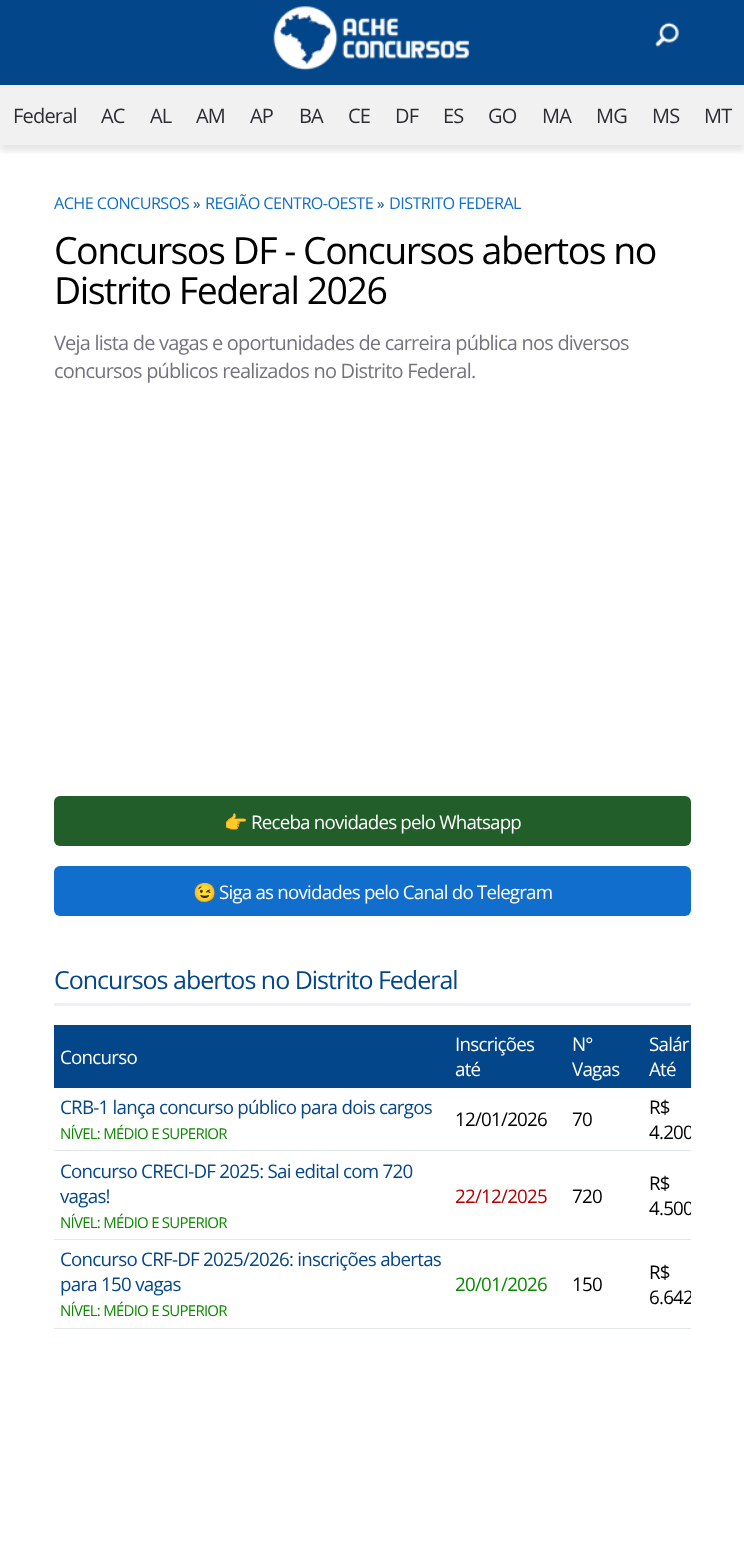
async function draw(canvas) {
  canvas.width = 744
  canvas.height = 1547
  const ctx = canvas.getContext('2d')
  ctx.miterLimit = 4
  ctx.fontKerning = 'normal'
  async function loadImage(src) {
    const img = new Image()
    img.src = src
    await img.decode()
    return img
  }

  ctx.fillStyle = '#fff'
  ctx.fillRect(0, 0, 744, 1547)
  ctx.fillStyle = '#04468a'
  ctx.fillRect(0, 0, 744, 85)
  ctx.drawImage(await loadImage('image0.png'), 273, 6, 197, 65)
  ctx.drawImage(await loadImage('image1.png'), 655, 22, 24, 25)
  ctx.fillStyle = '#f1f1f1'
  ctx.fillRect(0, 85, 744, 60)
  ctx.save()
  ctx.beginPath()
  ctx.rect(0, 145, 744, 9)
  ctx.clip()
  ctx.fillStyle = '#0000001a'
  ctx.filter = 'blur(3px)'
  ctx.beginPath()
  ctx.rect(0, 91, 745, 60)
  ctx.fill()
  ctx.filter = 'none'
  ctx.restore()
  ctx.letterSpacing = '-0.8px'
  ctx.font = '20px Open Sans'
  ctx.fillStyle = '#2b2d32'
  ctx.fillText('Federal', 13, 123)
  ctx.fillText('AC', 101, 123)
  ctx.fillText('AL', 150, 123)
  ctx.fillText('AM', 196, 123)
  ctx.fillText('AP', 250, 123)
  ctx.fillText('BA', 299, 123)
  ctx.fillText('CE', 348, 123)
  ctx.fillText('DF', 395, 123)
  ctx.fillText('ES', 443, 123)
  ctx.fillText('GO', 488, 123)
  ctx.fillText('MA', 542, 123)
  ctx.fillText('MG', 596, 123)
  ctx.fillText('MS', 652, 123)
  ctx.fillText('MT', 704, 123)
  ctx.letterSpacing = '-0.6px'
  ctx.font = '16.25px Open Sans'
  ctx.fillStyle = '#116ecd'
  ctx.fillText('ACHE CONCURSOS', 54, 209)
  ctx.font = '15px Open Sans'
  ctx.fillStyle = '#04468a'
  ctx.fillText('»', 193, 209)
  ctx.font = '16.25px Open Sans'
  ctx.fillStyle = '#116ecd'
  ctx.fillText('REGIÃO CENTRO-OESTE', 205, 209)
  ctx.font = '15px Open Sans'
  ctx.fillStyle = '#04468a'
  ctx.fillText('»', 377, 209)
  ctx.font = '16.25px Open Sans'
  ctx.fillStyle = '#116ecd'
  ctx.fillText('DISTRITO FEDERAL', 389, 209)
  ctx.letterSpacing = '-1.5px'
  ctx.font = '37.5px Open Sans'
  ctx.fillStyle = '#000'
  ctx.fillText('Concursos DF - Concursos abertos no', 54, 264)
  ctx.fillText('Distrito Federal 2026', 54, 304)
  ctx.letterSpacing = '-0.8px'
  ctx.font = '20px Open Sans'
  ctx.fillStyle = '#747481'
  ctx.fillText('Veja lista de vagas e oportunidades de carreira pública nos diversos', 54, 350)
  ctx.fillText('concursos públicos realizados no Distrito Federal.', 54, 378)
  ctx.fillStyle = '#225e29'
  ctx.beginPath()
  ctx.roundRect(54, 796, 637, 50, 6)
  ctx.fill()
  ctx.font = '18.75px Noto Color Emoji'
  ctx.fillStyle = '#fff'
  ctx.fillText('👉', 224, 829)
  ctx.font = '18.75px Open Sans'
  ctx.fillText('Receba novidades pelo Whatsapp', 251, 829)
  ctx.fillStyle = '#116ecd'
  ctx.beginPath()
  ctx.roundRect(54, 866, 637, 50, 6)
  ctx.fill()
  ctx.font = '18.75px Noto Color Emoji'
  ctx.fillStyle = '#fff'
  ctx.fillText('😉', 193, 899)
  ctx.font = '18.75px Open Sans'
  ctx.fillText('Siga as novidades pelo Canal do Telegram', 219, 899)
  ctx.fillStyle = '#eeeffb'
  ctx.fillRect(54, 1003, 637, 3)
  ctx.letterSpacing = '-1px'
  ctx.font = '25px Open Sans'
  ctx.fillStyle = '#04468a'
  ctx.fillText('Concursos abertos no Distrito Federal', 54, 989)
  ctx.fillRect(54, 1025, 637, 63)
  ctx.letterSpacing = '-0.75px'
  ctx.font = '18.75px Open Sans'
  ctx.fillStyle = '#fff'
  ctx.fillText('Concurso', 60, 1064)
  ctx.fillText('Inscrições', 455, 1051)
  ctx.fillText('até', 455, 1076)
  ctx.fillText('N°', 572, 1051)
  ctx.fillText('Vagas', 572, 1076)
  ctx.fillText('Salár', 649, 1051)
  ctx.fillText('Até', 649, 1076)
  ctx.fillStyle = '#e1e9ed'
  ctx.fillRect(54, 1150, 637, 1)
  ctx.fillStyle = '#04468a'
  ctx.fillText('CRB-1 lança concurso público para dois cargos', 60, 1114)
  ctx.font = '15px Open Sans'
  ctx.fillStyle = '#0c8900'
  ctx.fillText('NÍVEL: MÉDIO E SUPERIOR', 60, 1139)
  ctx.font = '18.75px Open Sans'
  ctx.fillStyle = '#000'
  ctx.fillText('12/01/2026', 455, 1126)
  ctx.fillText('70', 572, 1126)
  ctx.fillText('R$', 649, 1114)
  ctx.save()
  ctx.beginPath()
  ctx.rect(54, 1025, 637, 304)
  ctx.clip()
  ctx.fillText('4.200', 649, 1139)
  ctx.restore()
  ctx.fillStyle = '#e1e9ed'
  ctx.fillRect(54, 1239, 637, 1)
  ctx.fillStyle = '#04468a'
  ctx.fillText('Concurso CRECI-DF 2025: Sai edital com 720', 60, 1178)
  ctx.fillText('vagas!', 60, 1203)
  ctx.font = '15px Open Sans'
  ctx.fillStyle = '#0c8900'
  ctx.fillText('NÍVEL: MÉDIO E SUPERIOR', 60, 1228)
  ctx.font = '18.75px Open Sans'
  ctx.fillStyle = '#b50000'
  ctx.fillText('22/12/2025', 455, 1203)
  ctx.fillStyle = '#000'
  ctx.fillText('720', 572, 1203)
  ctx.fillText('R$', 649, 1190)
  ctx.save()
  ctx.beginPath()
  ctx.rect(54, 1025, 637, 304)
  ctx.clip()
  ctx.fillText('4.500', 649, 1215)
  ctx.restore()
  ctx.fillStyle = '#e1e9ed'
  ctx.fillRect(54, 1328, 637, 1)
  ctx.fillStyle = '#04468a'
  ctx.fillText('Concurso CRF-DF 2025/2026: inscrições abertas', 60, 1266)
  ctx.fillText('para 150 vagas', 60, 1291)
  ctx.font = '15px Open Sans'
  ctx.fillStyle = '#0c8900'
  ctx.fillText('NÍVEL: MÉDIO E SUPERIOR', 60, 1316)
  ctx.font = '18.75px Open Sans'
  ctx.fillText('20/01/2026', 455, 1291)
  ctx.fillStyle = '#000'
  ctx.fillText('150', 572, 1291)
  ctx.fillText('R$', 649, 1279)
  ctx.save()
  ctx.beginPath()
  ctx.rect(54, 1025, 637, 304)
  ctx.clip()
  ctx.fillText('6.642', 649, 1304)
  ctx.restore()
}

draw(document.querySelector('canvas'))
